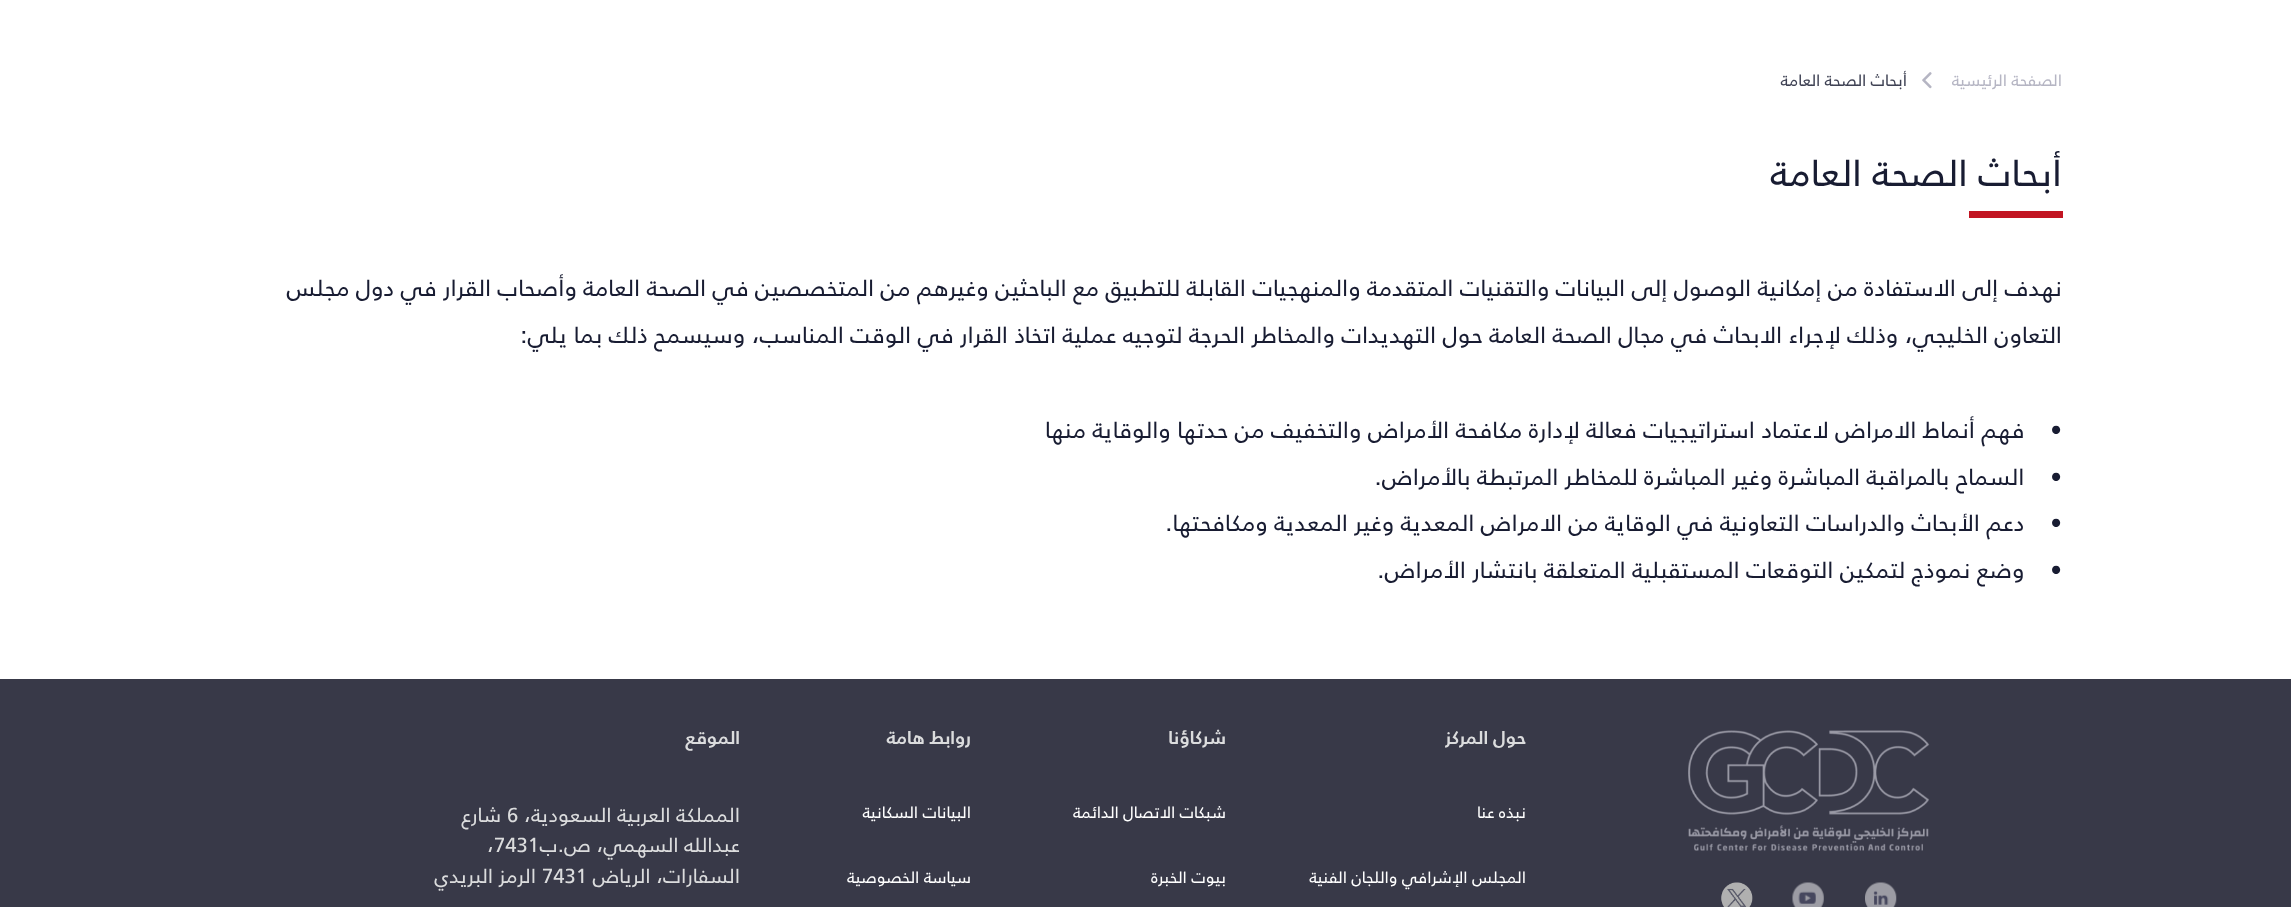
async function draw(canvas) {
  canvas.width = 2291
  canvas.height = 907
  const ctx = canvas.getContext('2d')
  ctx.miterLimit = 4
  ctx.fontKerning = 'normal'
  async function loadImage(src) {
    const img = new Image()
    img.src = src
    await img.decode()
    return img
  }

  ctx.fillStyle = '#fff'
  ctx.fillRect(0, 0, 2291, 907)
  ctx.direction = 'rtl'
  ctx.font = '16.25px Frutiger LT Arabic'
  ctx.fillStyle = '#b5b5c3'
  ctx.fillText('الصفحة الرئيسية', 2062, 86)
  ctx.drawImage(await loadImage('image0.png'), 1922, 72, 10, 17)
  ctx.fillStyle = '#3f4254'
  ctx.fillText('أبحاث الصحة العامة', 1907, 86)
  ctx.font = '37.5px Frutiger LT Arabic'
  ctx.fillStyle = '#181c32'
  ctx.fillText('أبحاث الصحة العامة', 2062, 186)
  ctx.fillStyle = '#c21522'
  ctx.fillRect(1969, 211, 94, 7)
  ctx.font = '23.33px Frutiger LT Arabic'
  ctx.fillStyle = '#181c32'
  ctx.fillText('نهدف إلى الاستفادة من إمكانية الوصول إلى البيانات والتقنيات المتقدمة والمنهجيات القابلة للتطبيق مع الباحثين وغيرهم من المتخصصين في الصحة العامة وأصحاب القرار في دول مجلس', 2062, 296)
  ctx.fillText('التعاون الخليجي، وذلك لإجراء الابحاث في مجال الصحة العامة حول التهديدات والمخاطر الحرجة لتوجيه عملية اتخاذ القرار في الوقت المناسب، وسيسمح ذلك بما يلي:', 2062, 343)
  ctx.fillText('•    فهم أنماط الامراض لاعتماد استراتيجيات فعالة لإدارة مكافحة الأمراض والتخفيف من حدتها والوقاية منها', 2062, 438)
  ctx.fillText('•    السماح بالمراقبة المباشرة وغير المباشرة للمخاطر المرتبطة بالأمراض.', 2062, 485)
  ctx.fillText('•    دعم الأبحاث والدراسات التعاونية في الوقاية من الامراض المعدية وغير المعدية ومكافحتها.', 2062, 531)
  ctx.fillText('•    وضع نموذج لتمكين التوقعات المستقبلية المتعلقة بانتشار الأمراض.', 2062, 578)
  ctx.fillStyle = '#383948'
  ctx.fillRect(0, 679, 2291, 228)
  ctx.drawImage(await loadImage('image1.png'), 1688, 730, 242, 121)
  ctx.drawImage(await loadImage('image2.png'), 1865, 882, 32, 25)
  ctx.drawImage(await loadImage('image3.png'), 1792, 882, 32, 25)
  ctx.drawImage(await loadImage('image4.png'), 1721, 882, 32, 25)
  ctx.font = 'bold 18.5px Frutiger LT Arabic'
  ctx.fillStyle = '#dbdcdd'
  ctx.fillText('حول المركز', 1526, 744)
  ctx.font = '16.25px Frutiger LT Arabic'
  ctx.fillStyle = '#fff'
  ctx.fillText('نبذه عنا', 1526, 818)
  ctx.fillText('المجلس الإشرافي واللجان الفنية', 1526, 883)
  ctx.font = 'bold 18.5px Frutiger LT Arabic'
  ctx.fillStyle = '#dbdcdd'
  ctx.fillText('شركاؤنا', 1226, 744)
  ctx.font = '16.25px Frutiger LT Arabic'
  ctx.fillStyle = '#fff'
  ctx.fillText('شبكات الاتصال الدائمة', 1226, 818)
  ctx.fillText('بيوت الخبرة', 1226, 883)
  ctx.font = 'bold 18.5px Frutiger LT Arabic'
  ctx.fillStyle = '#dbdcdd'
  ctx.fillText('روابط هامة', 971, 744)
  ctx.font = '16.25px Frutiger LT Arabic'
  ctx.fillStyle = '#fff'
  ctx.fillText('البيانات السكانية', 971, 818)
  ctx.fillText('سياسة الخصوصية', 971, 883)
  ctx.font = 'bold 18.5px Frutiger LT Arabic'
  ctx.fillStyle = '#dbdcdd'
  ctx.fillText('الموقع', 740, 744)
  ctx.font = '20.25px Frutiger LT Arabic'
  ctx.fillText('المملكة العربية السعودية،', 740, 822)
  ctx.direction = 'ltr'
  ctx.fillText('6', 507, 822)
  ctx.direction = 'rtl'
  ctx.fillText('شارع', 501, 822)
  ctx.fillText('عبدالله السهمي، ص.ب', 740, 852)
  ctx.direction = 'ltr'
  ctx.fillText('،7431', 487, 852)
  ctx.direction = 'rtl'
  ctx.fillText('السفارات، الرياض', 740, 883)
  ctx.direction = 'ltr'
  ctx.fillText('7431', 542, 883)
  ctx.direction = 'rtl'
  ctx.fillText('الرمز البريدي', 536, 883)
}

draw(document.querySelector('canvas'))
